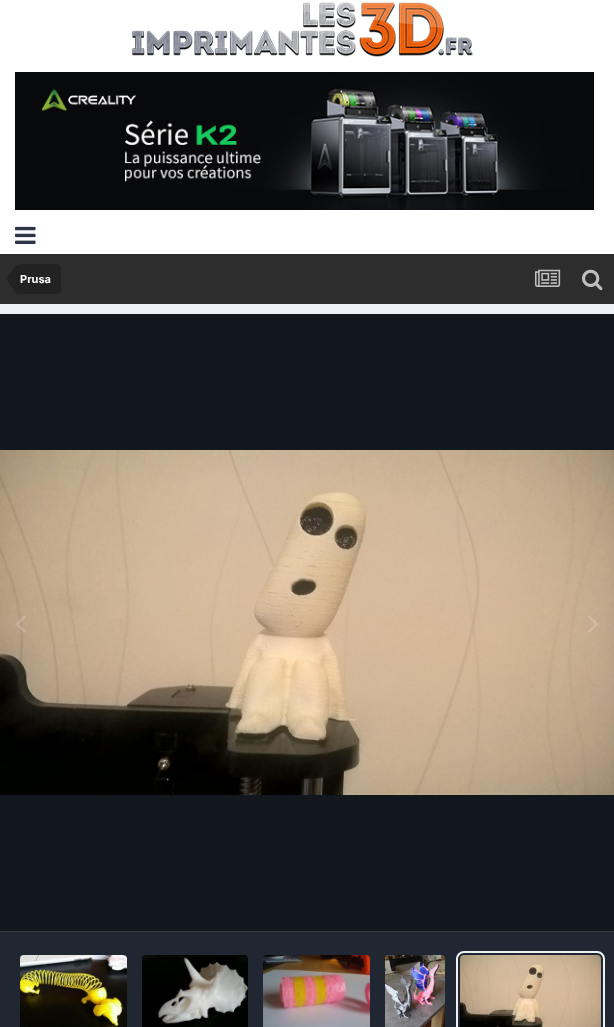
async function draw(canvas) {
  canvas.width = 614
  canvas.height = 1027
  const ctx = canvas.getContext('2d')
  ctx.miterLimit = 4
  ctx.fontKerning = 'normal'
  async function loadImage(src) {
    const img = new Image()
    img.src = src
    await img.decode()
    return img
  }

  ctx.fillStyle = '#edf0f4'
  ctx.fillRect(0, 0, 614, 1027)
  ctx.fillStyle = '#fff'
  ctx.fillRect(0, 0, 614, 254)
  ctx.drawImage(await loadImage('image0.png'), 132, 2, 341, 55)
  ctx.drawImage(await loadImage('image1.png'), 15, 72, 579, 138)
  ctx.drawImage(await loadImage('image2.png'), 15, 226, 21, 18)
  ctx.fillStyle = '#2d2d2d'
  ctx.fillRect(0, 254, 614, 50)
  ctx.fillStyle = '#222'
  ctx.beginPath()
  ctx.roundRect(20, 264, 41, 30, [0, 5, 5, 0])
  ctx.fill()
  ctx.beginPath()
  ctx.moveTo(7.5, 281)
  ctx.lineTo(7, 279.5)
  ctx.lineTo(20, 279.5)
  ctx.lineTo(20, 294.5)
  ctx.bezierCurveTo(18.5, 294.5, 16.5, 293.5, 15, 292)
  ctx.closePath()
  ctx.fill()
  ctx.fillStyle = '#00000040'
  ctx.beginPath()
  ctx.moveTo(20, 264.5)
  ctx.lineTo(20, 279.5)
  ctx.lineTo(7, 279.5)
  ctx.bezierCurveTo(7, 276.5, 9.5, 274.5, 11, 272.5)
  ctx.bezierCurveTo(13.5, 269, 15.5, 264.5, 20, 264.5)
  ctx.closePath()
  ctx.fill()
  ctx.font = 'bold 11px Inter'
  ctx.fillStyle = '#fff'
  ctx.fillText('Prusa', 20, 283)
  ctx.drawImage(await loadImage('image3.png'), 535, 269, 26, 18)
  ctx.drawImage(await loadImage('image4.png'), 582, 269, 21, 22)
  ctx.fillStyle = '#12161d'
  ctx.fillRect(0, 314, 614, 617)
  ctx.drawImage(await loadImage('image5.png'), 0, 450, 614, 345)
  ctx.drawImage(await loadImage('image6.png'), 16, 615, 10, 18)
  ctx.drawImage(await loadImage('image7.png'), 588, 615, 10, 18)
  ctx.fillStyle = '#202732'
  ctx.fillRect(0, 932, 614, 95)
  ctx.fillStyle = '#363d47'
  ctx.fillRect(0, 931, 614, 1)
  ctx.drawImage(await loadImage('image8.png'), 20, 955, 107, 72)
  ctx.drawImage(await loadImage('image9.png'), 142, 955, 106, 72)
  ctx.drawImage(await loadImage('image10.png'), 263, 955, 107, 72)
  ctx.drawImage(await loadImage('image11.png'), 385, 955, 60, 72)
  ctx.beginPath()
  ctx.roundRect(457, 952, 147, 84, 7)
  ctx.strokeStyle = '#edf2f7'
  ctx.lineWidth = 2
  ctx.stroke()
  ctx.drawImage(await loadImage('image12.png'), 460, 955, 141, 72)
}

draw(document.querySelector('canvas'))
